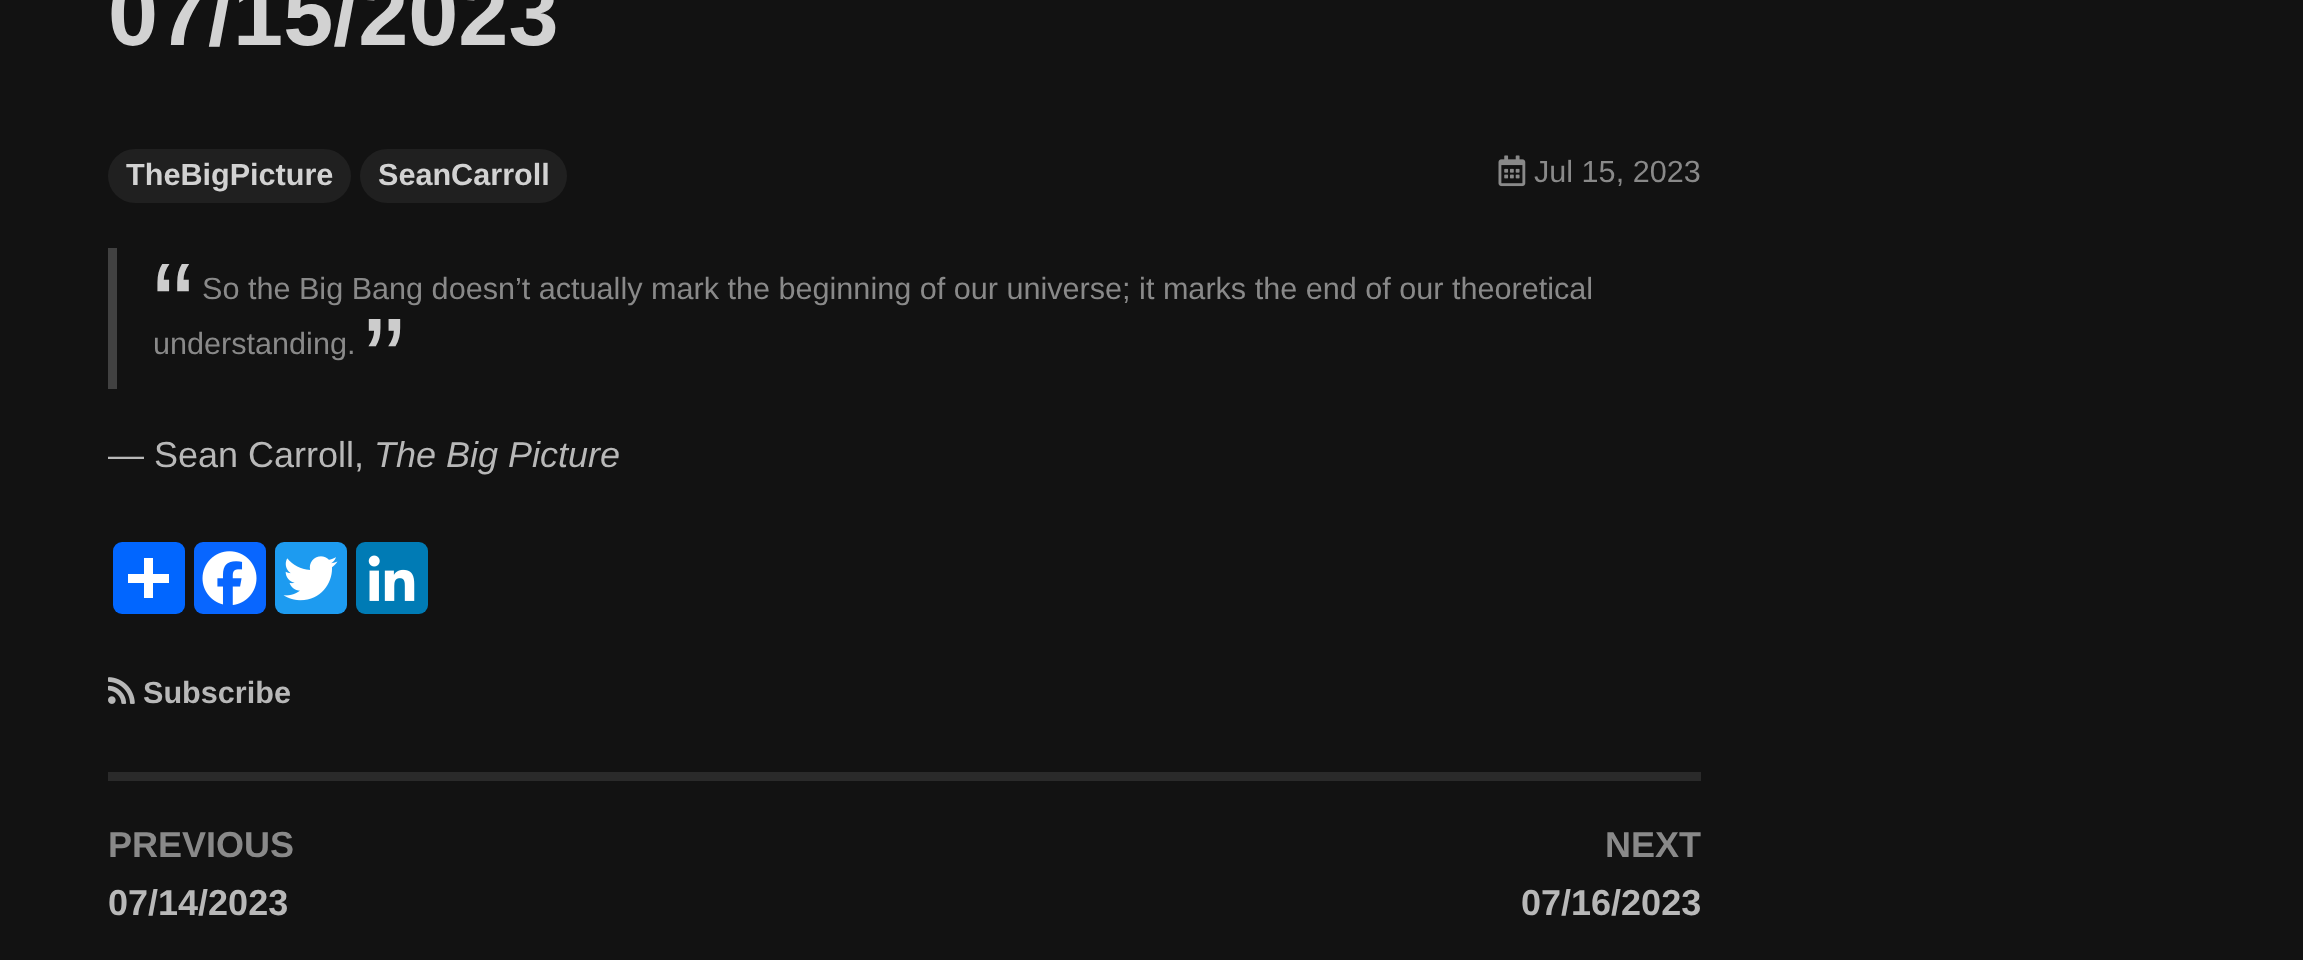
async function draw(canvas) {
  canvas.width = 2303
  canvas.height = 960
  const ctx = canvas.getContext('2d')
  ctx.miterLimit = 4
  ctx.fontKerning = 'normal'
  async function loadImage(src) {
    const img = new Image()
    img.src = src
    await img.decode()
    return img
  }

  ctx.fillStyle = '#121212'
  ctx.fillRect(0, 0, 2303, 960)
  ctx.font = 'bold 90px Liberation Sans'
  ctx.fillStyle = '#d2d2d2'
  ctx.fillText('07/15/2023', 108, 45)
  ctx.fillStyle = '#202020'
  ctx.beginPath()
  ctx.roundRect(108, 149, 243, 54, 27)
  ctx.fill()
  ctx.font = 'bold 30.6px Liberation Sans'
  ctx.fillStyle = '#d2d2d2'
  ctx.fillText('TheBigPicture', 126, 185)
  ctx.fillStyle = '#202020'
  ctx.beginPath()
  ctx.roundRect(360, 149, 207, 54, 27)
  ctx.fill()
  ctx.fillStyle = '#d2d2d2'
  ctx.fillText('SeanCarroll', 378, 185)
  ctx.drawImage(await loadImage('image0.png'), 1498, 155, 28, 32)
  ctx.font = '30.6px Liberation Sans'
  ctx.fillStyle = '#898989'
  ctx.fillText('Jul 15, 2023', 1534, 182)
  ctx.fillStyle = '#414141'
  ctx.fillRect(108, 248, 9, 141)
  ctx.font = '122px Liberation Sans'
  ctx.fillStyle = '#ccc'
  ctx.fillText('“', 153, 348)
  ctx.font = '30.6px Liberation Sans'
  ctx.fillStyle = '#898989'
  ctx.fillText('So the Big Bang doesn’t actually mark the beginning of our universe; it marks the end of our theoretical', 202, 299)
  ctx.fillText('understanding.', 153, 354)
  ctx.font = '122px Liberation Sans'
  ctx.fillStyle = '#ccc'
  ctx.fillText('”', 364, 403)
  ctx.font = '36px Liberation Sans'
  ctx.fillStyle = '#b8b8b8'
  ctx.fillText('— Sean Carroll,', 108, 467)
  ctx.font = 'italic 36px Liberation Sans'
  ctx.fillText('The Big Picture', 374, 467)
  ctx.fillStyle = '#0166ff'
  ctx.beginPath()
  ctx.roundRect(113, 542, 72, 72, 9)
  ctx.fill()
  ctx.fillStyle = '#fff'
  ctx.fillRect(144, 558, 9, 40)
  ctx.fillRect(128, 574, 41, 9)
  ctx.fillStyle = '#0866ff'
  ctx.beginPath()
  ctx.roundRect(194, 542, 72, 72, 9)
  ctx.fill()
  ctx.drawImage(await loadImage('image1.png'), 202, 551, 55, 54)
  ctx.fillStyle = '#1d9bf0'
  ctx.beginPath()
  ctx.roundRect(275, 542, 72, 72, 9)
  ctx.fill()
  ctx.drawImage(await loadImage('image2.png'), 283, 556, 55, 45)
  ctx.fillStyle = '#007bb5'
  ctx.beginPath()
  ctx.roundRect(356, 542, 72, 72, 9)
  ctx.fill()
  ctx.drawImage(await loadImage('image3.png'), 368, 555, 47, 46)
  ctx.drawImage(await loadImage('image4.png'), 108, 677, 27, 27)
  ctx.font = 'bold 30.6px Liberation Sans'
  ctx.fillStyle = '#b8b8b8'
  ctx.fillText('Subscribe', 143, 703)
  ctx.fillStyle = '#2a2a2a'
  ctx.fillRect(108, 772, 1593, 9)
  ctx.font = 'bold 36px Liberation Sans'
  ctx.fillStyle = '#898989'
  ctx.fillText('PREVIOUS', 108, 857)
  ctx.fillStyle = '#b8b8b8'
  ctx.fillText('07/14/2023', 108, 915)
  ctx.fillStyle = '#898989'
  ctx.fillText('NEXT', 1605, 857)
  ctx.fillStyle = '#b8b8b8'
  ctx.fillText('07/16/2023', 1521, 915)
}

draw(document.querySelector('canvas'))
